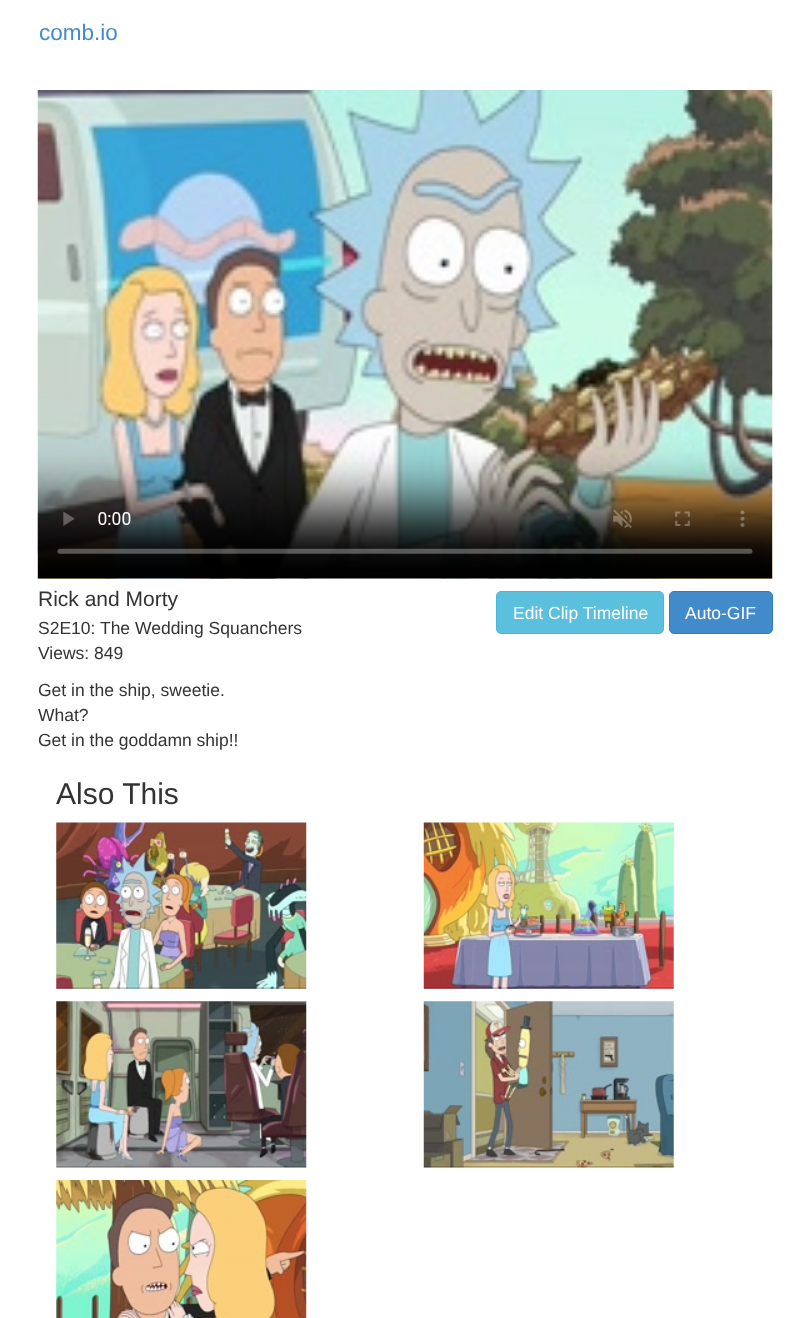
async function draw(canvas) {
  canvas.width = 809
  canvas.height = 1318
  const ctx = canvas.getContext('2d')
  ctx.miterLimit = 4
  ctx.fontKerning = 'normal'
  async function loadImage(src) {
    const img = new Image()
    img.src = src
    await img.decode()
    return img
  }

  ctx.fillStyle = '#fff'
  ctx.fillRect(0, 0, 809, 1318)
  ctx.font = '22.5px Liberation Sans'
  ctx.fillStyle = '#428bca'
  ctx.fillText('comb.io', 39, 40)
  ctx.drawImage(await loadImage('image0.png'), 37, 90, 736, 489)
  ctx.font = '21px Liberation Sans'
  ctx.fillStyle = '#333'
  ctx.fillText('Rick and Morty', 38, 606)
  ctx.font = '17.5px Liberation Sans'
  ctx.fillText('S2E10: The Wedding Squanchers', 38, 634)
  ctx.fillText('Views: 849', 38, 659)
  ctx.fillText('Get in the ship, sweetie.', 38, 696)
  ctx.fillText('What?', 38, 721)
  ctx.fillText('Get in the goddamn ship!!', 38, 746)
  ctx.fillStyle = '#5bc0de'
  ctx.beginPath()
  ctx.roundRect(496.5, 591.5, 167, 42, 4.5)
  ctx.fill()
  ctx.strokeStyle = '#46b8da'
  ctx.stroke()
  ctx.fillStyle = '#fff'
  ctx.fillText('Edit Clip Timeline', 513, 619)
  ctx.fillStyle = '#428bca'
  ctx.beginPath()
  ctx.roundRect(669.5, 591.5, 103, 42, 4.5)
  ctx.fill()
  ctx.strokeStyle = '#357ebd'
  ctx.stroke()
  ctx.fillStyle = '#fff'
  ctx.fillText('Auto-GIF', 685, 619)
  ctx.font = '30px Liberation Sans'
  ctx.fillStyle = '#333'
  ctx.fillText('Also This', 56, 804)
  ctx.drawImage(await loadImage('image1.png'), 56, 822, 251, 167)
  ctx.drawImage(await loadImage('image2.png'), 423, 822, 251, 167)
  ctx.drawImage(await loadImage('image3.png'), 56, 1001, 251, 167)
  ctx.drawImage(await loadImage('image4.png'), 423, 1001, 251, 167)
  ctx.drawImage(await loadImage('image5.png'), 56, 1180, 251, 138)
}

draw(document.querySelector('canvas'))
